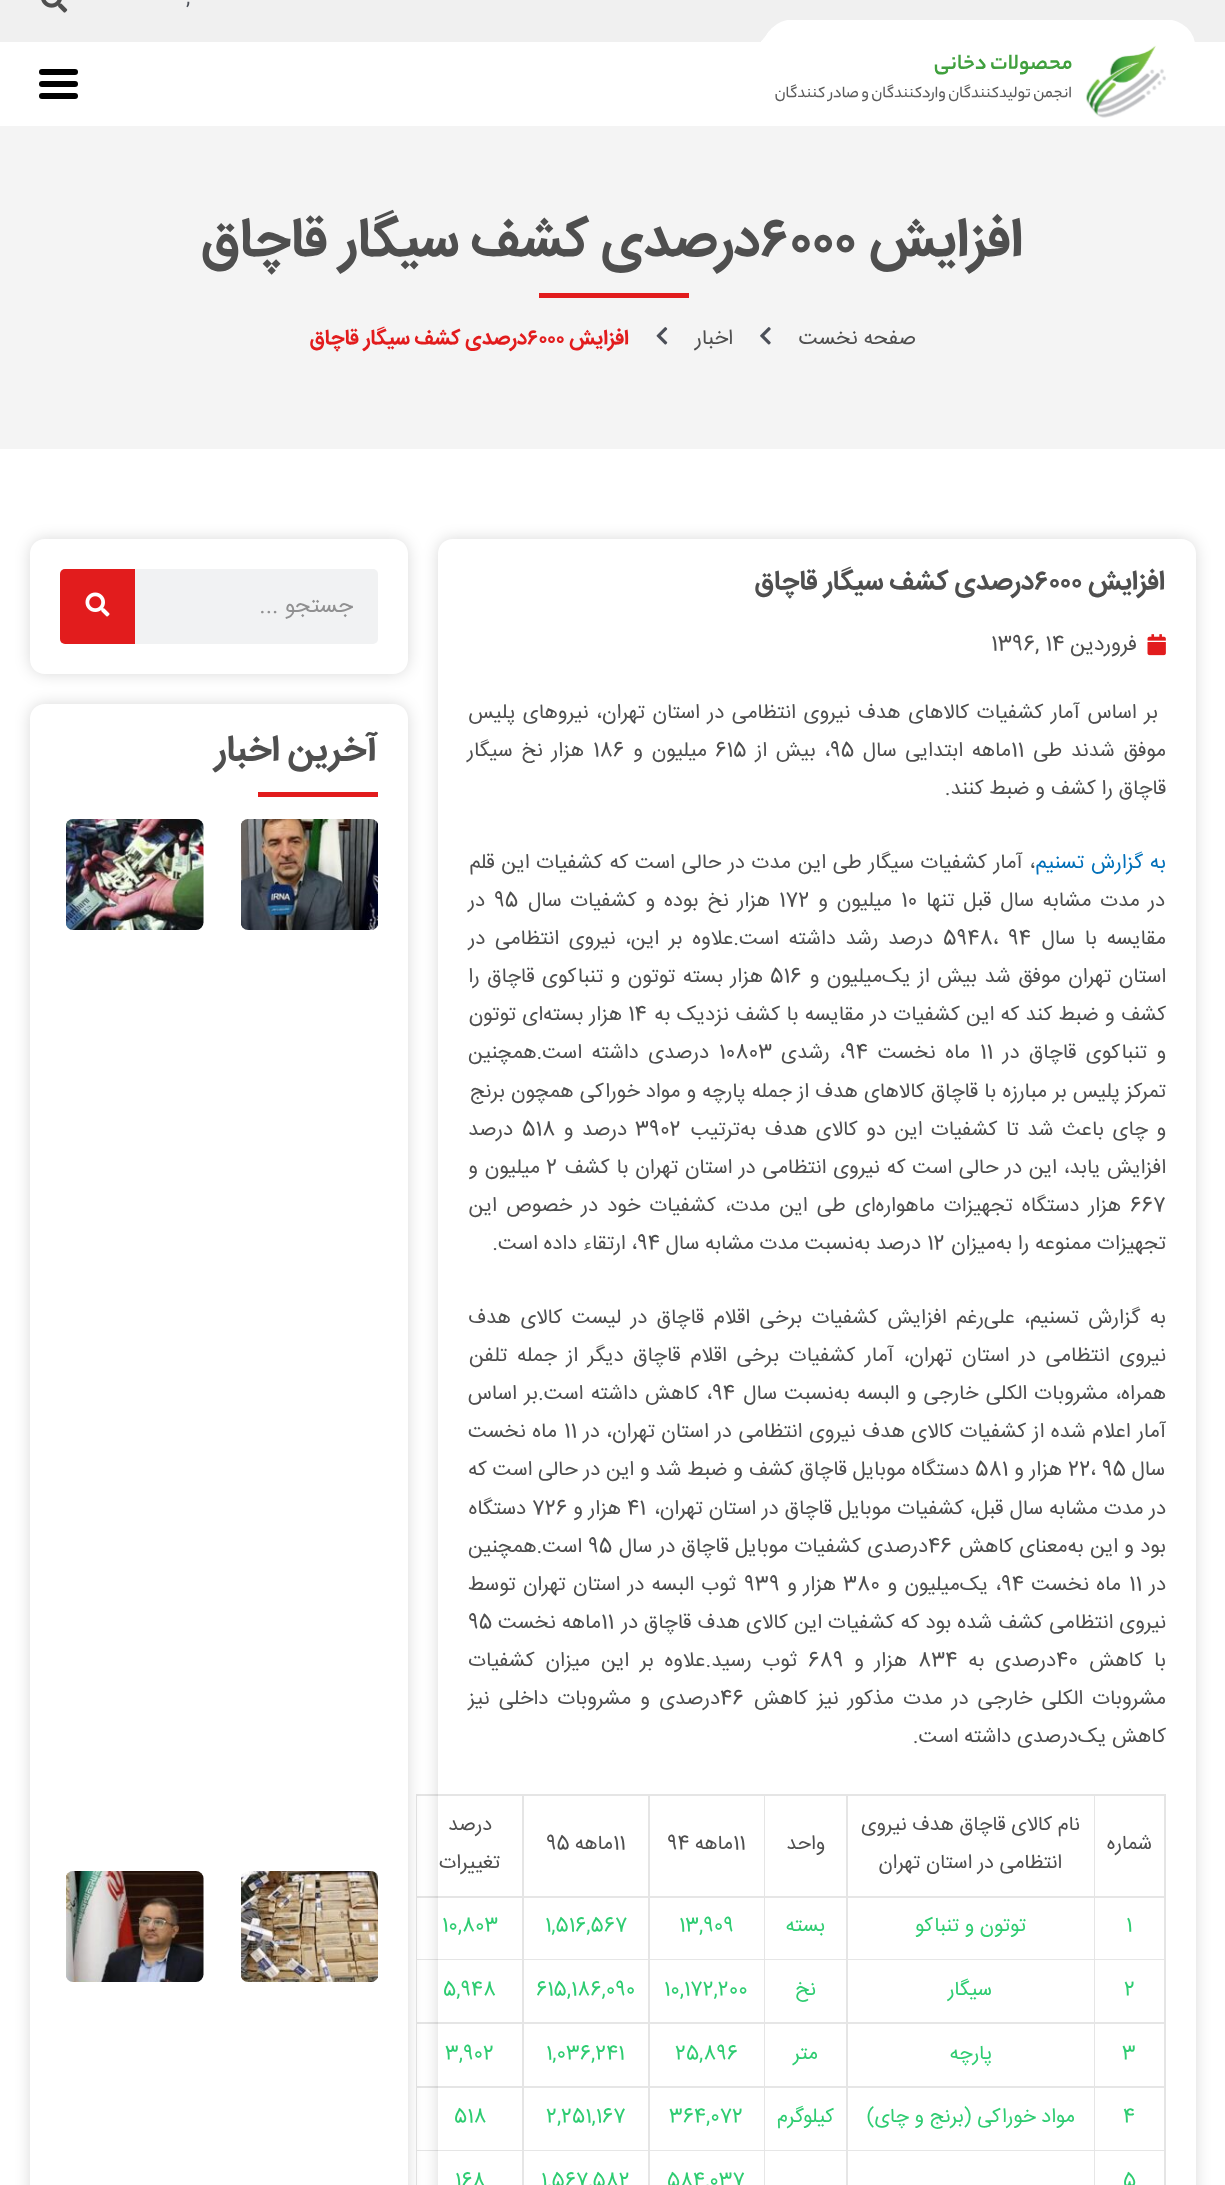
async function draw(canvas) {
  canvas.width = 1225
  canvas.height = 2185
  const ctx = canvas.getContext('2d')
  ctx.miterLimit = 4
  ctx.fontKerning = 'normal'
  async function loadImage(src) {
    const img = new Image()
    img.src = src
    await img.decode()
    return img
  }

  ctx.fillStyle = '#fff'
  ctx.fillRect(0, 0, 1225, 2185)
  ctx.fillStyle = '#f0f0f0'
  ctx.fillRect(0, 0, 1225, 42)
  ctx.font = '20.5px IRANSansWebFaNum'
  ctx.fillStyle = '#4b4f58'
  ctx.fillText(',', 186, 3)
  ctx.drawImage(await loadImage('image0.png'), 41, 0, 27, 13)
  ctx.drawImage(await loadImage('image1.png'), 761, 20, 434, 98)
  ctx.fillStyle = '#000'
  ctx.beginPath()
  ctx.roundRect(39, 81, 39, 6, 3)
  ctx.fill()
  ctx.beginPath()
  ctx.roundRect(39, 69, 39, 6, 3)
  ctx.fill()
  ctx.beginPath()
  ctx.roundRect(39, 93, 39, 6, 3)
  ctx.fill()
  ctx.fillStyle = '#f4f4f4'
  ctx.fillRect(0, 126, 1225, 323)
  ctx.direction = 'rtl'
  ctx.font = 'bold 54px IRANSansWebFaNum'
  ctx.fillStyle = '#4f4f4f'
  ctx.fillText('افزایش', 1023, 255)
  ctx.direction = 'ltr'
  ctx.fillText('۶۰۰۰', 760, 255)
  ctx.direction = 'rtl'
  ctx.fillText('درصدی کشف سیگار قاچاق', 760, 255)
  ctx.fillStyle = '#e21c1d'
  ctx.fillRect(539, 293, 150, 5)
  ctx.font = '21px IRANSansWebFaNum'
  ctx.fillStyle = '#4f4f4f'
  ctx.fillText('صفحه نخست', 916, 344)
  ctx.drawImage(await loadImage('image2.png'), 760, 327, 11, 18)
  ctx.fillText('اخبار', 733, 344)
  ctx.drawImage(await loadImage('image3.png'), 656, 327, 12, 18)
  ctx.font = 'bold 21px IRANSansWebFaNum'
  ctx.fillStyle = '#e21c1d'
  ctx.fillText('افزایش', 629, 344)
  ctx.direction = 'ltr'
  ctx.fillText('۶۰۰۰', 527, 344)
  ctx.direction = 'rtl'
  ctx.fillText('درصدی کشف سیگار قاچاق', 527, 344)
  ctx.save()
  ctx.beginPath()
  ctx.moveTo(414, 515)
  ctx.lineTo(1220, 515)
  ctx.lineTo(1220, 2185)
  ctx.lineTo(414, 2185)
  ctx.closePath()
  ctx.moveTo(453, 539)
  ctx.lineTo(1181, 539)
  ctx.bezierCurveTo(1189.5, 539, 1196, 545.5, 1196, 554)
  ctx.lineTo(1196, 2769)
  ctx.bezierCurveTo(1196, 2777.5, 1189.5, 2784, 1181, 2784)
  ctx.lineTo(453, 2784)
  ctx.bezierCurveTo(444.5, 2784, 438, 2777.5, 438, 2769)
  ctx.lineTo(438, 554)
  ctx.bezierCurveTo(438, 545.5, 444.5, 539, 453, 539)
  ctx.closePath()
  ctx.clip('evenodd')
  ctx.fillStyle = '#00000026'
  ctx.filter = 'blur(7.5px)'
  ctx.beginPath()
  ctx.roundRect(438, 539, 758, 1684, 15)
  ctx.fill()
  ctx.filter = 'none'
  ctx.restore()
  ctx.font = 'bold 27px IRANSansWebFaNum'
  ctx.fillStyle = '#4f4f4f'
  ctx.fillText('افزایش', 1165, 589)
  ctx.direction = 'ltr'
  ctx.fillText('۶۰۰۰', 1034, 589)
  ctx.direction = 'rtl'
  ctx.fillText('درصدی کشف سیگار قاچاق', 1034, 589)
  ctx.drawImage(await loadImage('image4.png'), 1147, 634, 19, 22)
  ctx.font = '21px IRANSansWebFaNum'
  ctx.fillText('فروردین', 1137, 650)
  ctx.direction = 'ltr'
  ctx.fillText('1396, 14', 991, 650)
  ctx.wordSpacing = '1.9px'
  ctx.direction = 'rtl'
  ctx.font = '20.5px IRANSansWebFaNum'
  ctx.fillText('بر اساس آمار کشفیات کالاهای هدف نیروی انتظامی در استان تهران، نیروهای پلیس', 1158, 718)
  ctx.wordSpacing = '3px'
  ctx.fillText('موفق شدند طی', 1166, 756)
  ctx.wordSpacing = '0px'
  ctx.direction = 'ltr'
  ctx.fillText('11', 1011, 756)
  ctx.wordSpacing = '3px'
  ctx.direction = 'rtl'
  ctx.fillText('ماهه ابتدایی سال', 1011, 756)
  ctx.wordSpacing = '0px'
  ctx.direction = 'ltr'
  ctx.fillText('95', 830, 756)
  ctx.wordSpacing = '3px'
  ctx.direction = 'rtl'
  ctx.fillText('، بیش از', 830, 756)
  ctx.wordSpacing = '0px'
  ctx.direction = 'ltr'
  ctx.fillText('615', 715, 756)
  ctx.wordSpacing = '3px'
  ctx.direction = 'rtl'
  ctx.fillText('میلیون و', 707, 756)
  ctx.wordSpacing = '0px'
  ctx.direction = 'ltr'
  ctx.fillText('186', 593, 756)
  ctx.wordSpacing = '3px'
  ctx.direction = 'rtl'
  ctx.fillText('هزار نخ سیگار', 584, 756)
  ctx.wordSpacing = '0px'
  ctx.fillText('قاچاق را کشف و ضبط کنند.', 1166, 794)
  ctx.wordSpacing = '1px'
  ctx.fillStyle = '#0170b9'
  ctx.fillText('به گزارش تسنیم', 1166, 868)
  ctx.fillStyle = '#4f4f4f'
  ctx.fillText('، آمار کشفیات سیگار طی این مدت در حالی است که کشفیات این قلم', 1035, 868)
  ctx.wordSpacing = '3px'
  ctx.fillText('در مدت مشابه سال قبل تنها', 1165, 906)
  ctx.wordSpacing = '0px'
  ctx.direction = 'ltr'
  ctx.fillText('10', 901, 906)
  ctx.wordSpacing = '3px'
  ctx.direction = 'rtl'
  ctx.fillText('میلیون و', 892, 906)
  ctx.wordSpacing = '0px'
  ctx.direction = 'ltr'
  ctx.fillText('172', 779, 906)
  ctx.wordSpacing = '3px'
  ctx.direction = 'rtl'
  ctx.fillText('هزار نخ بوده و کشفیات سال', 770, 906)
  ctx.wordSpacing = '0px'
  ctx.direction = 'ltr'
  ctx.fillText('95', 494, 906)
  ctx.direction = 'rtl'
  ctx.fillText('در', 485, 906)
  ctx.wordSpacing = '4px'
  ctx.fillText('مقایسه با سال', 1166, 944)
  ctx.wordSpacing = '0px'
  ctx.direction = 'ltr'
  ctx.fillText('94', 1008, 944)
  ctx.fillText('5948،', 943, 944)
  ctx.wordSpacing = '4px'
  ctx.direction = 'rtl'
  ctx.fillText('درصد رشد داشته است.علاوه بر این، نیروی انتظامی در', 933, 944)
  ctx.wordSpacing = '1.75px'
  ctx.fillText('استان تهران موفق شد بیش از یک‌میلیون و', 1166, 982)
  ctx.wordSpacing = '0px'
  ctx.direction = 'ltr'
  ctx.fillText('516', 770, 982)
  ctx.wordSpacing = '1.75px'
  ctx.direction = 'rtl'
  ctx.fillText('هزار بسته توتون و تنباکوی قاچاق را', 763, 982)
  ctx.wordSpacing = '0.5px'
  ctx.fillText('کشف و ضبط کند که این کشفیات در مقایسه با کشف نزدیک به', 1166, 1020)
  ctx.wordSpacing = '0px'
  ctx.direction = 'ltr'
  ctx.fillText('14', 628, 1020)
  ctx.wordSpacing = '0.5px'
  ctx.direction = 'rtl'
  ctx.fillText('هزار بسته‌ای توتون', 622, 1020)
  ctx.wordSpacing = '3.75px'
  ctx.fillText('و تنباکوی قاچاق در', 1166, 1058)
  ctx.wordSpacing = '0px'
  ctx.direction = 'ltr'
  ctx.fillText('11', 980, 1058)
  ctx.wordSpacing = '4px'
  ctx.direction = 'rtl'
  ctx.fillText('ماه نخست', 970, 1058)
  ctx.wordSpacing = '0px'
  ctx.direction = 'ltr'
  ctx.fillText('94', 845, 1058)
  ctx.wordSpacing = '4px'
  ctx.direction = 'rtl'
  ctx.fillText('، رشدی', 845, 1058)
  ctx.wordSpacing = '0px'
  ctx.direction = 'ltr'
  ctx.fillText('10803', 719, 1058)
  ctx.wordSpacing = '3.75px'
  ctx.direction = 'rtl'
  ctx.fillText('درصدی داشته است.همچنین', 709, 1058)
  ctx.wordSpacing = '0.3px'
  ctx.fillText('تمرکز پلیس بر مبارزه با قاچاق کالاهای هدف از جمله پارچه و مواد خوراکی همچون برنج', 1166, 1097)
  ctx.wordSpacing = '2.75px'
  ctx.fillText('و چای باعث شد تا کشفیات این دو کالای هدف به‌ترتیب', 1166, 1135)
  ctx.wordSpacing = '0px'
  ctx.direction = 'ltr'
  ctx.fillText('3902', 635, 1135)
  ctx.wordSpacing = '2.75px'
  ctx.direction = 'rtl'
  ctx.fillText('درصد و', 627, 1135)
  ctx.wordSpacing = '0px'
  ctx.direction = 'ltr'
  ctx.fillText('518', 522, 1135)
  ctx.direction = 'rtl'
  ctx.fillText('درصد', 513, 1135)
  ctx.wordSpacing = '1px'
  ctx.fillText('افزایش یابد، این در حالی است که نیروی انتظامی در استان تهران با کشف', 1166, 1173)
  ctx.wordSpacing = '0px'
  ctx.direction = 'ltr'
  ctx.fillText('2', 546, 1173)
  ctx.wordSpacing = '1px'
  ctx.direction = 'rtl'
  ctx.fillText('میلیون و', 540, 1173)
  ctx.wordSpacing = '0px'
  ctx.direction = 'ltr'
  ctx.fillText('667', 1130, 1211)
  ctx.wordSpacing = '3.4px'
  ctx.direction = 'rtl'
  ctx.fillText('هزار دستگاه تجهیزات ماهواره‌ای طی این مدت، کشفیات خود در خصوص این', 1121, 1211)
  ctx.wordSpacing = '0px'
  ctx.fillText('تجهیزات ممنوعه را به‌میزان', 1166, 1249)
  ctx.direction = 'ltr'
  ctx.fillText('12', 927, 1249)
  ctx.direction = 'rtl'
  ctx.fillText('درصد به‌نسبت مدت مشابه سال', 921, 1249)
  ctx.direction = 'ltr'
  ctx.fillText('94', 637, 1249)
  ctx.direction = 'rtl'
  ctx.fillText('، ارتقاء داده است.', 637, 1249)
  ctx.wordSpacing = '3.75px'
  ctx.fillText('به گزارش تسنیم، علی‌رغم افزایش کشفیات برخی اقلام قاچاق در لیست کالای هدف', 1166, 1323)
  ctx.wordSpacing = '4px'
  ctx.fillText('نیروی انتظامی در استان تهران، آمار کشفیات برخی اقلام قاچاق دیگر از جمله تلفن', 1166, 1361)
  ctx.wordSpacing = '1.5px'
  ctx.fillText('همراه، مشروبات الکلی خارجی و البسه به‌نسبت سال', 1166, 1399)
  ctx.wordSpacing = '0px'
  ctx.direction = 'ltr'
  ctx.fillText('94', 712, 1399)
  ctx.wordSpacing = '1.5px'
  ctx.direction = 'rtl'
  ctx.fillText('، کاهش داشته است.بر اساس', 712, 1399)
  ctx.wordSpacing = '0.75px'
  ctx.fillText('آمار اعلام شده از کشفیات کالای هدف نیروی انتظامی در استان تهران، در', 1166, 1437)
  ctx.wordSpacing = '0px'
  ctx.direction = 'ltr'
  ctx.fillText('11', 564, 1437)
  ctx.wordSpacing = '0.75px'
  ctx.direction = 'rtl'
  ctx.fillText('ماه نخست', 557, 1437)
  ctx.wordSpacing = '0px'
  ctx.fillText('سال', 1165, 1475)
  ctx.direction = 'ltr'
  ctx.fillText('22، 95', 1068, 1475)
  ctx.direction = 'rtl'
  ctx.fillText('هزار و', 1062, 1475)
  ctx.direction = 'ltr'
  ctx.fillText('581', 975, 1475)
  ctx.direction = 'rtl'
  ctx.fillText('دستگاه موبایل قاچاق کشف و ضبط شد و این در حالی است که', 969, 1475)
  ctx.wordSpacing = '0.25px'
  ctx.fillText('در مدت مشابه سال قبل، کشفیات موبایل قاچاق در استان تهران،', 1166, 1514)
  ctx.wordSpacing = '0px'
  ctx.direction = 'ltr'
  ctx.fillText('41', 627, 1514)
  ctx.direction = 'rtl'
  ctx.fillText('هزار و', 621, 1514)
  ctx.direction = 'ltr'
  ctx.fillText('726', 532, 1514)
  ctx.direction = 'rtl'
  ctx.fillText('دستگاه', 526, 1514)
  ctx.wordSpacing = '0.5px'
  ctx.fillText('بود و این به‌معنای کاهش', 1166, 1552)
  ctx.wordSpacing = '0px'
  ctx.direction = 'ltr'
  ctx.fillText('46', 928, 1552)
  ctx.wordSpacing = '0.5px'
  ctx.direction = 'rtl'
  ctx.fillText('درصدی کشفیات موبایل قاچاق در سال', 928, 1552)
  ctx.wordSpacing = '0px'
  ctx.direction = 'ltr'
  ctx.fillText('95', 588, 1552)
  ctx.direction = 'rtl'
  ctx.fillText('است.همچنین', 582, 1552)
  ctx.fillText('در', 1166, 1590)
  ctx.direction = 'ltr'
  ctx.fillText('11', 1129, 1590)
  ctx.wordSpacing = '1.5px'
  ctx.direction = 'rtl'
  ctx.fillText('ماه نخست', 1121, 1590)
  ctx.wordSpacing = '0px'
  ctx.direction = 'ltr'
  ctx.fillText('94', 1001, 1590)
  ctx.wordSpacing = '1.5px'
  ctx.direction = 'rtl'
  ctx.fillText('، یک‌میلیون و', 1001, 1590)
  ctx.wordSpacing = '0px'
  ctx.direction = 'ltr'
  ctx.fillText('380', 843, 1590)
  ctx.wordSpacing = '1px'
  ctx.direction = 'rtl'
  ctx.fillText('هزار و', 836, 1590)
  ctx.wordSpacing = '0px'
  ctx.direction = 'ltr'
  ctx.fillText('939', 744, 1590)
  ctx.wordSpacing = '1.5px'
  ctx.direction = 'rtl'
  ctx.fillText('ثوب البسه در استان تهران توسط', 736, 1590)
  ctx.wordSpacing = '0.25px'
  ctx.fillText('نیروی انتظامی کشف شده بود که کشفیات این کالای هدف قاچاق در', 1166, 1628)
  ctx.wordSpacing = '0px'
  ctx.direction = 'ltr'
  ctx.fillText('11', 601, 1628)
  ctx.wordSpacing = '0.25px'
  ctx.direction = 'rtl'
  ctx.fillText('ماهه نخست', 601, 1628)
  ctx.wordSpacing = '0px'
  ctx.direction = 'ltr'
  ctx.fillText('95', 468, 1628)
  ctx.wordSpacing = '5px'
  ctx.direction = 'rtl'
  ctx.fillText('با کاهش', 1166, 1666)
  ctx.wordSpacing = '0px'
  ctx.direction = 'ltr'
  ctx.fillText('40', 1056, 1666)
  ctx.wordSpacing = '5px'
  ctx.direction = 'rtl'
  ctx.fillText('درصدی به', 1056, 1666)
  ctx.wordSpacing = '0px'
  ctx.direction = 'ltr'
  ctx.fillText('834', 918, 1666)
  ctx.wordSpacing = '5px'
  ctx.direction = 'rtl'
  ctx.fillText('هزار و', 907, 1666)
  ctx.wordSpacing = '0px'
  ctx.direction = 'ltr'
  ctx.fillText('689', 808, 1666)
  ctx.wordSpacing = '5px'
  ctx.direction = 'rtl'
  ctx.fillText('ثوب رسید.علاوه بر این میزان کشفیات', 797, 1666)
  ctx.wordSpacing = '3.4px'
  ctx.fillText('مشروبات الکلی خارجی در مدت مذکور نیز کاهش', 1166, 1704)
  ctx.wordSpacing = '0px'
  ctx.direction = 'ltr'
  ctx.fillText('46', 720, 1704)
  ctx.wordSpacing = '3.4px'
  ctx.direction = 'rtl'
  ctx.fillText('درصدی و مشروبات داخلی نیز', 720, 1704)
  ctx.wordSpacing = '0px'
  ctx.fillText('کاهش یک‌درصدی داشته است.', 1166, 1742)
  ctx.fillStyle = '#0000001a'
  ctx.beginPath()
  ctx.moveTo(416, 1794)
  ctx.lineTo(1166, 1794)
  ctx.lineTo(1164, 1796)
  ctx.lineTo(416, 1796)
  ctx.closePath()
  ctx.fill()
  ctx.beginPath()
  ctx.moveTo(1166, 1794)
  ctx.lineTo(1166, 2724)
  ctx.lineTo(1164, 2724)
  ctx.lineTo(1164, 1796)
  ctx.closePath()
  ctx.fill()
  ctx.fillStyle = '#e6e6e6'
  ctx.beginPath()
  ctx.moveTo(1164, 1898)
  ctx.lineTo(1094, 1898)
  ctx.lineTo(1095, 1896)
  ctx.lineTo(1164, 1896)
  ctx.closePath()
  ctx.fill()
  ctx.fillStyle = '#0000001a'
  ctx.beginPath()
  ctx.moveTo(1094, 1898)
  ctx.lineTo(1094, 1796)
  ctx.lineTo(1095, 1796)
  ctx.lineTo(1095, 1896)
  ctx.closePath()
  ctx.fill()
  ctx.font = '20px IRANSansWebFaNum'
  ctx.fillStyle = '#4f4f4f'
  ctx.fillText('شماره', 1152, 1849)
  ctx.fillStyle = '#e6e6e6'
  ctx.beginPath()
  ctx.moveTo(1094, 1898)
  ctx.lineTo(846, 1898)
  ctx.lineTo(848, 1896)
  ctx.lineTo(1094, 1896)
  ctx.closePath()
  ctx.fill()
  ctx.fillStyle = '#0000001a'
  ctx.beginPath()
  ctx.moveTo(846, 1898)
  ctx.lineTo(846, 1796)
  ctx.lineTo(848, 1796)
  ctx.lineTo(848, 1896)
  ctx.closePath()
  ctx.fill()
  ctx.fillStyle = '#4f4f4f'
  ctx.fillText('نام کالای قاچاق هدف نیروی', 1080, 1830)
  ctx.fillText('انتظامی در استان تهران', 1062, 1868)
  ctx.fillStyle = '#e6e6e6'
  ctx.beginPath()
  ctx.moveTo(846, 1898)
  ctx.lineTo(764, 1898)
  ctx.lineTo(765, 1896)
  ctx.lineTo(846, 1896)
  ctx.closePath()
  ctx.fill()
  ctx.fillStyle = '#0000001a'
  ctx.beginPath()
  ctx.moveTo(764, 1898)
  ctx.lineTo(764, 1796)
  ctx.lineTo(765, 1796)
  ctx.lineTo(765, 1896)
  ctx.closePath()
  ctx.fill()
  ctx.fillStyle = '#4f4f4f'
  ctx.fillText('واحد', 825, 1849)
  ctx.fillStyle = '#e6e6e6'
  ctx.beginPath()
  ctx.moveTo(764, 1898)
  ctx.lineTo(648, 1898)
  ctx.lineTo(650, 1896)
  ctx.lineTo(764, 1896)
  ctx.closePath()
  ctx.fill()
  ctx.fillStyle = '#0000001a'
  ctx.beginPath()
  ctx.moveTo(648, 1898)
  ctx.lineTo(648, 1796)
  ctx.lineTo(650, 1796)
  ctx.lineTo(650, 1896)
  ctx.closePath()
  ctx.fill()
  ctx.direction = 'ltr'
  ctx.fillStyle = '#4f4f4f'
  ctx.fillText('11', 733, 1849)
  ctx.direction = 'rtl'
  ctx.fillText('ماهه', 733, 1849)
  ctx.direction = 'ltr'
  ctx.fillText('94', 667, 1849)
  ctx.fillStyle = '#e6e6e6'
  ctx.beginPath()
  ctx.moveTo(648, 1898)
  ctx.lineTo(522, 1898)
  ctx.lineTo(524, 1896)
  ctx.lineTo(648, 1896)
  ctx.closePath()
  ctx.fill()
  ctx.fillStyle = '#0000001a'
  ctx.beginPath()
  ctx.moveTo(522, 1898)
  ctx.lineTo(522, 1796)
  ctx.lineTo(524, 1796)
  ctx.lineTo(524, 1896)
  ctx.closePath()
  ctx.fill()
  ctx.fillStyle = '#4f4f4f'
  ctx.fillText('11', 613, 1849)
  ctx.direction = 'rtl'
  ctx.fillText('ماهه', 613, 1849)
  ctx.direction = 'ltr'
  ctx.fillText('95', 546, 1849)
  ctx.fillStyle = '#0000001a'
  ctx.beginPath()
  ctx.moveTo(522, 1898)
  ctx.lineTo(416, 1898)
  ctx.lineTo(417, 1896)
  ctx.lineTo(522, 1896)
  ctx.closePath()
  ctx.fill()
  ctx.beginPath()
  ctx.moveTo(416, 1898)
  ctx.lineTo(416, 1796)
  ctx.lineTo(417, 1796)
  ctx.lineTo(417, 1896)
  ctx.closePath()
  ctx.fill()
  ctx.direction = 'rtl'
  ctx.fillStyle = '#4f4f4f'
  ctx.fillText('درصد', 492, 1830)
  ctx.fillText('تغییرات', 500, 1868)
  ctx.fillStyle = '#e6e6e6'
  ctx.beginPath()
  ctx.moveTo(1164, 1960)
  ctx.lineTo(1094, 1960)
  ctx.lineTo(1095, 1959)
  ctx.lineTo(1164, 1959)
  ctx.closePath()
  ctx.fill()
  ctx.fillStyle = '#0000001a'
  ctx.beginPath()
  ctx.moveTo(1094, 1960)
  ctx.lineTo(1094, 1898)
  ctx.lineTo(1095, 1898)
  ctx.lineTo(1095, 1959)
  ctx.closePath()
  ctx.fill()
  ctx.direction = 'ltr'
  ctx.fillStyle = '#2ecc71'
  ctx.fillText('1', 1126, 1931)
  ctx.fillStyle = '#e6e6e6'
  ctx.beginPath()
  ctx.moveTo(1094, 1960)
  ctx.lineTo(846, 1960)
  ctx.lineTo(848, 1959)
  ctx.lineTo(1094, 1959)
  ctx.closePath()
  ctx.fill()
  ctx.fillStyle = '#0000001a'
  ctx.beginPath()
  ctx.moveTo(846, 1960)
  ctx.lineTo(846, 1898)
  ctx.lineTo(848, 1898)
  ctx.lineTo(848, 1959)
  ctx.closePath()
  ctx.fill()
  ctx.direction = 'rtl'
  ctx.fillStyle = '#2ecc71'
  ctx.fillText('توتون و تنباکو', 1026, 1931)
  ctx.fillStyle = '#e6e6e6'
  ctx.beginPath()
  ctx.moveTo(846, 1960)
  ctx.lineTo(764, 1960)
  ctx.lineTo(765, 1959)
  ctx.lineTo(846, 1959)
  ctx.closePath()
  ctx.fill()
  ctx.fillStyle = '#0000001a'
  ctx.beginPath()
  ctx.moveTo(764, 1960)
  ctx.lineTo(764, 1898)
  ctx.lineTo(765, 1898)
  ctx.lineTo(765, 1959)
  ctx.closePath()
  ctx.fill()
  ctx.fillStyle = '#2ecc71'
  ctx.fillText('بسته', 825, 1931)
  ctx.fillStyle = '#e6e6e6'
  ctx.beginPath()
  ctx.moveTo(764, 1960)
  ctx.lineTo(648, 1960)
  ctx.lineTo(650, 1959)
  ctx.lineTo(764, 1959)
  ctx.closePath()
  ctx.fill()
  ctx.fillStyle = '#0000001a'
  ctx.beginPath()
  ctx.moveTo(648, 1960)
  ctx.lineTo(648, 1898)
  ctx.lineTo(650, 1898)
  ctx.lineTo(650, 1959)
  ctx.closePath()
  ctx.fill()
  ctx.direction = 'ltr'
  ctx.fillStyle = '#2ecc71'
  ctx.fillText('13,909', 679, 1931)
  ctx.fillStyle = '#e6e6e6'
  ctx.beginPath()
  ctx.moveTo(648, 1960)
  ctx.lineTo(522, 1960)
  ctx.lineTo(524, 1959)
  ctx.lineTo(648, 1959)
  ctx.closePath()
  ctx.fill()
  ctx.fillStyle = '#0000001a'
  ctx.beginPath()
  ctx.moveTo(522, 1960)
  ctx.lineTo(522, 1898)
  ctx.lineTo(524, 1898)
  ctx.lineTo(524, 1959)
  ctx.closePath()
  ctx.fill()
  ctx.fillStyle = '#2ecc71'
  ctx.fillText('1,516,567', 545, 1931)
  ctx.fillStyle = '#0000001a'
  ctx.beginPath()
  ctx.moveTo(522, 1960)
  ctx.lineTo(416, 1960)
  ctx.lineTo(417, 1959)
  ctx.lineTo(522, 1959)
  ctx.closePath()
  ctx.fill()
  ctx.beginPath()
  ctx.moveTo(416, 1960)
  ctx.lineTo(416, 1898)
  ctx.lineTo(417, 1898)
  ctx.lineTo(417, 1959)
  ctx.closePath()
  ctx.fill()
  ctx.fillStyle = '#2ecc71'
  ctx.fillText('10,803', 442, 1931)
  ctx.fillStyle = '#e6e6e6'
  ctx.beginPath()
  ctx.moveTo(1164, 2024)
  ctx.lineTo(1094, 2024)
  ctx.lineTo(1095, 2022)
  ctx.lineTo(1164, 2022)
  ctx.closePath()
  ctx.fill()
  ctx.fillStyle = '#0000001a'
  ctx.beginPath()
  ctx.moveTo(1094, 2024)
  ctx.lineTo(1094, 1960)
  ctx.lineTo(1095, 1960)
  ctx.lineTo(1095, 2022)
  ctx.closePath()
  ctx.fill()
  ctx.fillStyle = '#2ecc71'
  ctx.fillText('2', 1124, 1995)
  ctx.fillStyle = '#e6e6e6'
  ctx.beginPath()
  ctx.moveTo(1094, 2024)
  ctx.lineTo(846, 2024)
  ctx.lineTo(848, 2022)
  ctx.lineTo(1094, 2022)
  ctx.closePath()
  ctx.fill()
  ctx.fillStyle = '#0000001a'
  ctx.beginPath()
  ctx.moveTo(846, 2024)
  ctx.lineTo(846, 1960)
  ctx.lineTo(848, 1960)
  ctx.lineTo(848, 2022)
  ctx.closePath()
  ctx.fill()
  ctx.direction = 'rtl'
  ctx.fillStyle = '#2ecc71'
  ctx.fillText('سیگار', 992, 1995)
  ctx.fillStyle = '#e6e6e6'
  ctx.beginPath()
  ctx.moveTo(846, 2024)
  ctx.lineTo(764, 2024)
  ctx.lineTo(765, 2022)
  ctx.lineTo(846, 2022)
  ctx.closePath()
  ctx.fill()
  ctx.fillStyle = '#0000001a'
  ctx.beginPath()
  ctx.moveTo(764, 2024)
  ctx.lineTo(764, 1960)
  ctx.lineTo(765, 1960)
  ctx.lineTo(765, 2022)
  ctx.closePath()
  ctx.fill()
  ctx.fillStyle = '#2ecc71'
  ctx.fillText('نخ', 816, 1995)
  ctx.fillStyle = '#e6e6e6'
  ctx.beginPath()
  ctx.moveTo(764, 2024)
  ctx.lineTo(648, 2024)
  ctx.lineTo(650, 2022)
  ctx.lineTo(764, 2022)
  ctx.closePath()
  ctx.fill()
  ctx.fillStyle = '#0000001a'
  ctx.beginPath()
  ctx.moveTo(648, 2024)
  ctx.lineTo(648, 1960)
  ctx.lineTo(650, 1960)
  ctx.lineTo(650, 2022)
  ctx.closePath()
  ctx.fill()
  ctx.direction = 'ltr'
  ctx.fillStyle = '#2ecc71'
  ctx.fillText('10,172,200', 664, 1995)
  ctx.fillStyle = '#e6e6e6'
  ctx.beginPath()
  ctx.moveTo(648, 2024)
  ctx.lineTo(522, 2024)
  ctx.lineTo(524, 2022)
  ctx.lineTo(648, 2022)
  ctx.closePath()
  ctx.fill()
  ctx.fillStyle = '#0000001a'
  ctx.beginPath()
  ctx.moveTo(522, 2024)
  ctx.lineTo(522, 1960)
  ctx.lineTo(524, 1960)
  ctx.lineTo(524, 2022)
  ctx.closePath()
  ctx.fill()
  ctx.fillStyle = '#2ecc71'
  ctx.fillText('615,186,090', 536, 1995)
  ctx.fillStyle = '#0000001a'
  ctx.beginPath()
  ctx.moveTo(522, 2024)
  ctx.lineTo(416, 2024)
  ctx.lineTo(417, 2022)
  ctx.lineTo(522, 2022)
  ctx.closePath()
  ctx.fill()
  ctx.beginPath()
  ctx.moveTo(416, 2024)
  ctx.lineTo(416, 1960)
  ctx.lineTo(417, 1960)
  ctx.lineTo(417, 2022)
  ctx.closePath()
  ctx.fill()
  ctx.fillStyle = '#2ecc71'
  ctx.fillText('5,948', 443, 1995)
  ctx.fillStyle = '#e6e6e6'
  ctx.beginPath()
  ctx.moveTo(1164, 2088)
  ctx.lineTo(1094, 2088)
  ctx.lineTo(1095, 2086)
  ctx.lineTo(1164, 2086)
  ctx.closePath()
  ctx.fill()
  ctx.fillStyle = '#0000001a'
  ctx.beginPath()
  ctx.moveTo(1094, 2088)
  ctx.lineTo(1094, 2024)
  ctx.lineTo(1095, 2024)
  ctx.lineTo(1095, 2086)
  ctx.closePath()
  ctx.fill()
  ctx.fillStyle = '#2ecc71'
  ctx.fillText('3', 1122, 2059)
  ctx.fillStyle = '#e6e6e6'
  ctx.beginPath()
  ctx.moveTo(1094, 2088)
  ctx.lineTo(846, 2088)
  ctx.lineTo(848, 2086)
  ctx.lineTo(1094, 2086)
  ctx.closePath()
  ctx.fill()
  ctx.fillStyle = '#0000001a'
  ctx.beginPath()
  ctx.moveTo(846, 2088)
  ctx.lineTo(846, 2024)
  ctx.lineTo(848, 2024)
  ctx.lineTo(848, 2086)
  ctx.closePath()
  ctx.fill()
  ctx.direction = 'rtl'
  ctx.fillStyle = '#2ecc71'
  ctx.fillText('پارچه', 992, 2059)
  ctx.fillStyle = '#e6e6e6'
  ctx.beginPath()
  ctx.moveTo(846, 2088)
  ctx.lineTo(764, 2088)
  ctx.lineTo(765, 2086)
  ctx.lineTo(846, 2086)
  ctx.closePath()
  ctx.fill()
  ctx.fillStyle = '#0000001a'
  ctx.beginPath()
  ctx.moveTo(764, 2088)
  ctx.lineTo(764, 2024)
  ctx.lineTo(765, 2024)
  ctx.lineTo(765, 2086)
  ctx.closePath()
  ctx.fill()
  ctx.fillStyle = '#2ecc71'
  ctx.fillText('متر', 818, 2059)
  ctx.fillStyle = '#e6e6e6'
  ctx.beginPath()
  ctx.moveTo(764, 2088)
  ctx.lineTo(648, 2088)
  ctx.lineTo(650, 2086)
  ctx.lineTo(764, 2086)
  ctx.closePath()
  ctx.fill()
  ctx.fillStyle = '#0000001a'
  ctx.beginPath()
  ctx.moveTo(648, 2088)
  ctx.lineTo(648, 2024)
  ctx.lineTo(650, 2024)
  ctx.lineTo(650, 2086)
  ctx.closePath()
  ctx.fill()
  ctx.direction = 'ltr'
  ctx.fillStyle = '#2ecc71'
  ctx.fillText('25,896', 675, 2059)
  ctx.fillStyle = '#e6e6e6'
  ctx.beginPath()
  ctx.moveTo(648, 2088)
  ctx.lineTo(522, 2088)
  ctx.lineTo(524, 2086)
  ctx.lineTo(648, 2086)
  ctx.closePath()
  ctx.fill()
  ctx.fillStyle = '#0000001a'
  ctx.beginPath()
  ctx.moveTo(522, 2088)
  ctx.lineTo(522, 2024)
  ctx.lineTo(524, 2024)
  ctx.lineTo(524, 2086)
  ctx.closePath()
  ctx.fill()
  ctx.fillStyle = '#2ecc71'
  ctx.fillText('1,036,241', 546, 2059)
  ctx.fillStyle = '#0000001a'
  ctx.beginPath()
  ctx.moveTo(522, 2088)
  ctx.lineTo(416, 2088)
  ctx.lineTo(417, 2086)
  ctx.lineTo(522, 2086)
  ctx.closePath()
  ctx.fill()
  ctx.beginPath()
  ctx.moveTo(416, 2088)
  ctx.lineTo(416, 2024)
  ctx.lineTo(417, 2024)
  ctx.lineTo(417, 2086)
  ctx.closePath()
  ctx.fill()
  ctx.fillStyle = '#2ecc71'
  ctx.fillText('3,902', 445, 2059)
  ctx.fillStyle = '#e6e6e6'
  ctx.beginPath()
  ctx.moveTo(1164, 2151)
  ctx.lineTo(1094, 2151)
  ctx.lineTo(1095, 2150)
  ctx.lineTo(1164, 2150)
  ctx.closePath()
  ctx.fill()
  ctx.fillStyle = '#0000001a'
  ctx.beginPath()
  ctx.moveTo(1094, 2151)
  ctx.lineTo(1094, 2088)
  ctx.lineTo(1095, 2088)
  ctx.lineTo(1095, 2150)
  ctx.closePath()
  ctx.fill()
  ctx.fillStyle = '#2ecc71'
  ctx.fillText('4', 1123, 2122)
  ctx.fillStyle = '#e6e6e6'
  ctx.beginPath()
  ctx.moveTo(1094, 2151)
  ctx.lineTo(846, 2151)
  ctx.lineTo(848, 2150)
  ctx.lineTo(1094, 2150)
  ctx.closePath()
  ctx.fill()
  ctx.fillStyle = '#0000001a'
  ctx.beginPath()
  ctx.moveTo(846, 2151)
  ctx.lineTo(846, 2088)
  ctx.lineTo(848, 2088)
  ctx.lineTo(848, 2150)
  ctx.closePath()
  ctx.fill()
  ctx.direction = 'rtl'
  ctx.fillStyle = '#2ecc71'
  ctx.fillText('مواد خوراکی (برنج و چای)', 1075, 2122)
  ctx.fillStyle = '#e6e6e6'
  ctx.beginPath()
  ctx.moveTo(846, 2151)
  ctx.lineTo(764, 2151)
  ctx.lineTo(765, 2150)
  ctx.lineTo(846, 2150)
  ctx.closePath()
  ctx.fill()
  ctx.fillStyle = '#0000001a'
  ctx.beginPath()
  ctx.moveTo(764, 2151)
  ctx.lineTo(764, 2088)
  ctx.lineTo(765, 2088)
  ctx.lineTo(765, 2150)
  ctx.closePath()
  ctx.fill()
  ctx.fillStyle = '#2ecc71'
  ctx.fillText('کیلوگرم', 834, 2122)
  ctx.fillStyle = '#e6e6e6'
  ctx.beginPath()
  ctx.moveTo(764, 2151)
  ctx.lineTo(648, 2151)
  ctx.lineTo(650, 2150)
  ctx.lineTo(764, 2150)
  ctx.closePath()
  ctx.fill()
  ctx.fillStyle = '#0000001a'
  ctx.beginPath()
  ctx.moveTo(648, 2151)
  ctx.lineTo(648, 2088)
  ctx.lineTo(650, 2088)
  ctx.lineTo(650, 2150)
  ctx.closePath()
  ctx.fill()
  ctx.direction = 'ltr'
  ctx.fillStyle = '#2ecc71'
  ctx.fillText('364,072', 669, 2122)
  ctx.fillStyle = '#e6e6e6'
  ctx.beginPath()
  ctx.moveTo(648, 2151)
  ctx.lineTo(522, 2151)
  ctx.lineTo(524, 2150)
  ctx.lineTo(648, 2150)
  ctx.closePath()
  ctx.fill()
  ctx.fillStyle = '#0000001a'
  ctx.beginPath()
  ctx.moveTo(522, 2151)
  ctx.lineTo(522, 2088)
  ctx.lineTo(524, 2088)
  ctx.lineTo(524, 2150)
  ctx.closePath()
  ctx.fill()
  ctx.fillStyle = '#2ecc71'
  ctx.fillText('2,251,167', 546, 2122)
  ctx.fillStyle = '#0000001a'
  ctx.beginPath()
  ctx.moveTo(522, 2151)
  ctx.lineTo(416, 2151)
  ctx.lineTo(417, 2150)
  ctx.lineTo(522, 2150)
  ctx.closePath()
  ctx.fill()
  ctx.beginPath()
  ctx.moveTo(416, 2151)
  ctx.lineTo(416, 2088)
  ctx.lineTo(417, 2088)
  ctx.lineTo(417, 2150)
  ctx.closePath()
  ctx.fill()
  ctx.fillStyle = '#2ecc71'
  ctx.fillText('518', 454, 2122)
  ctx.fillStyle = '#e6e6e6'
  ctx.beginPath()
  ctx.moveTo(1094, 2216)
  ctx.lineTo(1094, 2151)
  ctx.lineTo(1095, 2151)
  ctx.lineTo(1095, 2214)
  ctx.closePath()
  ctx.fill()
  ctx.fillStyle = '#2ecc71'
  ctx.fillText('5', 1123, 2186)
  ctx.fillStyle = '#e6e6e6'
  ctx.beginPath()
  ctx.moveTo(846, 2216)
  ctx.lineTo(846, 2151)
  ctx.lineTo(848, 2151)
  ctx.lineTo(848, 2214)
  ctx.closePath()
  ctx.fill()
  ctx.beginPath()
  ctx.moveTo(764, 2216)
  ctx.lineTo(764, 2151)
  ctx.lineTo(765, 2151)
  ctx.lineTo(765, 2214)
  ctx.closePath()
  ctx.fill()
  ctx.beginPath()
  ctx.moveTo(648, 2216)
  ctx.lineTo(648, 2151)
  ctx.lineTo(650, 2151)
  ctx.lineTo(650, 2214)
  ctx.closePath()
  ctx.fill()
  ctx.fillStyle = '#2ecc71'
  ctx.fillText('584,037', 667, 2186)
  ctx.fillStyle = '#e6e6e6'
  ctx.beginPath()
  ctx.moveTo(522, 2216)
  ctx.lineTo(522, 2151)
  ctx.lineTo(524, 2151)
  ctx.lineTo(524, 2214)
  ctx.closePath()
  ctx.fill()
  ctx.fillStyle = '#2ecc71'
  ctx.fillText('1,567,582', 541, 2186)
  ctx.fillStyle = '#e5e5e5'
  ctx.beginPath()
  ctx.moveTo(416, 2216)
  ctx.lineTo(416, 2151)
  ctx.lineTo(417, 2151)
  ctx.lineTo(417, 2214)
  ctx.closePath()
  ctx.fill()
  ctx.fillStyle = '#2ecc71'
  ctx.fillText('168', 455, 2186)
  ctx.save()
  ctx.beginPath()
  ctx.moveTo(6, 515)
  ctx.lineTo(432, 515)
  ctx.lineTo(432, 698)
  ctx.lineTo(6, 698)
  ctx.closePath()
  ctx.moveTo(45, 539)
  ctx.lineTo(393, 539)
  ctx.bezierCurveTo(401.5, 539, 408, 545.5, 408, 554)
  ctx.lineTo(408, 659)
  ctx.bezierCurveTo(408, 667.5, 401.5, 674, 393, 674)
  ctx.lineTo(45, 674)
  ctx.bezierCurveTo(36.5, 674, 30, 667.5, 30, 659)
  ctx.lineTo(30, 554)
  ctx.bezierCurveTo(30, 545.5, 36.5, 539, 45, 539)
  ctx.closePath()
  ctx.clip('evenodd')
  ctx.fillStyle = '#00000026'
  ctx.filter = 'blur(7.5px)'
  ctx.beginPath()
  ctx.roundRect(30, 539, 378, 135, 15)
  ctx.fill()
  ctx.filter = 'none'
  ctx.restore()
  ctx.fillStyle = '#f1f2f3'
  ctx.beginPath()
  ctx.roundRect(60, 569, 318, 75, 5)
  ctx.fill()
  ctx.direction = 'rtl'
  ctx.font = '22.5px IRANSansWebFaNum'
  ctx.fillStyle = '#909091'
  ctx.fillText('جستجو ...', 353, 612)
  ctx.fillStyle = '#e21c1d'
  ctx.beginPath()
  ctx.roundRect(60, 569, 75, 75, [5, 0, 0, 5])
  ctx.fill()
  ctx.drawImage(await loadImage('image5.png'), 85, 592, 25, 25)
  ctx.save()
  ctx.beginPath()
  ctx.moveTo(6, 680)
  ctx.lineTo(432, 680)
  ctx.lineTo(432, 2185)
  ctx.lineTo(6, 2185)
  ctx.closePath()
  ctx.moveTo(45, 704)
  ctx.lineTo(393, 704)
  ctx.bezierCurveTo(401.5, 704, 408, 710.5, 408, 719)
  ctx.lineTo(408, 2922)
  ctx.bezierCurveTo(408, 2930.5, 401.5, 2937, 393, 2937)
  ctx.lineTo(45, 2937)
  ctx.bezierCurveTo(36.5, 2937, 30, 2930.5, 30, 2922)
  ctx.lineTo(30, 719)
  ctx.bezierCurveTo(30, 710.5, 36.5, 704, 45, 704)
  ctx.closePath()
  ctx.clip('evenodd')
  ctx.fillStyle = '#00000026'
  ctx.filter = 'blur(7.5px)'
  ctx.beginPath()
  ctx.roundRect(30, 704, 378, 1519, 15)
  ctx.fill()
  ctx.filter = 'none'
  ctx.restore()
  ctx.font = 'bold 36px IRANSansWebFaNum'
  ctx.fillStyle = '#4f4f4f'
  ctx.fillText('آخرین اخبار', 378, 760)
  ctx.fillStyle = '#e21c1d'
  ctx.fillRect(258, 792, 120, 5)
  ctx.drawImage(await loadImage('image6.png'), 241, 819, 137, 111)
  ctx.drawImage(await loadImage('image7.png'), 66, 819, 138, 111)
  ctx.drawImage(await loadImage('image8.png'), 241, 1871, 137, 111)
  ctx.drawImage(await loadImage('image9.png'), 66, 1871, 138, 111)
}

draw(document.querySelector('canvas'))
